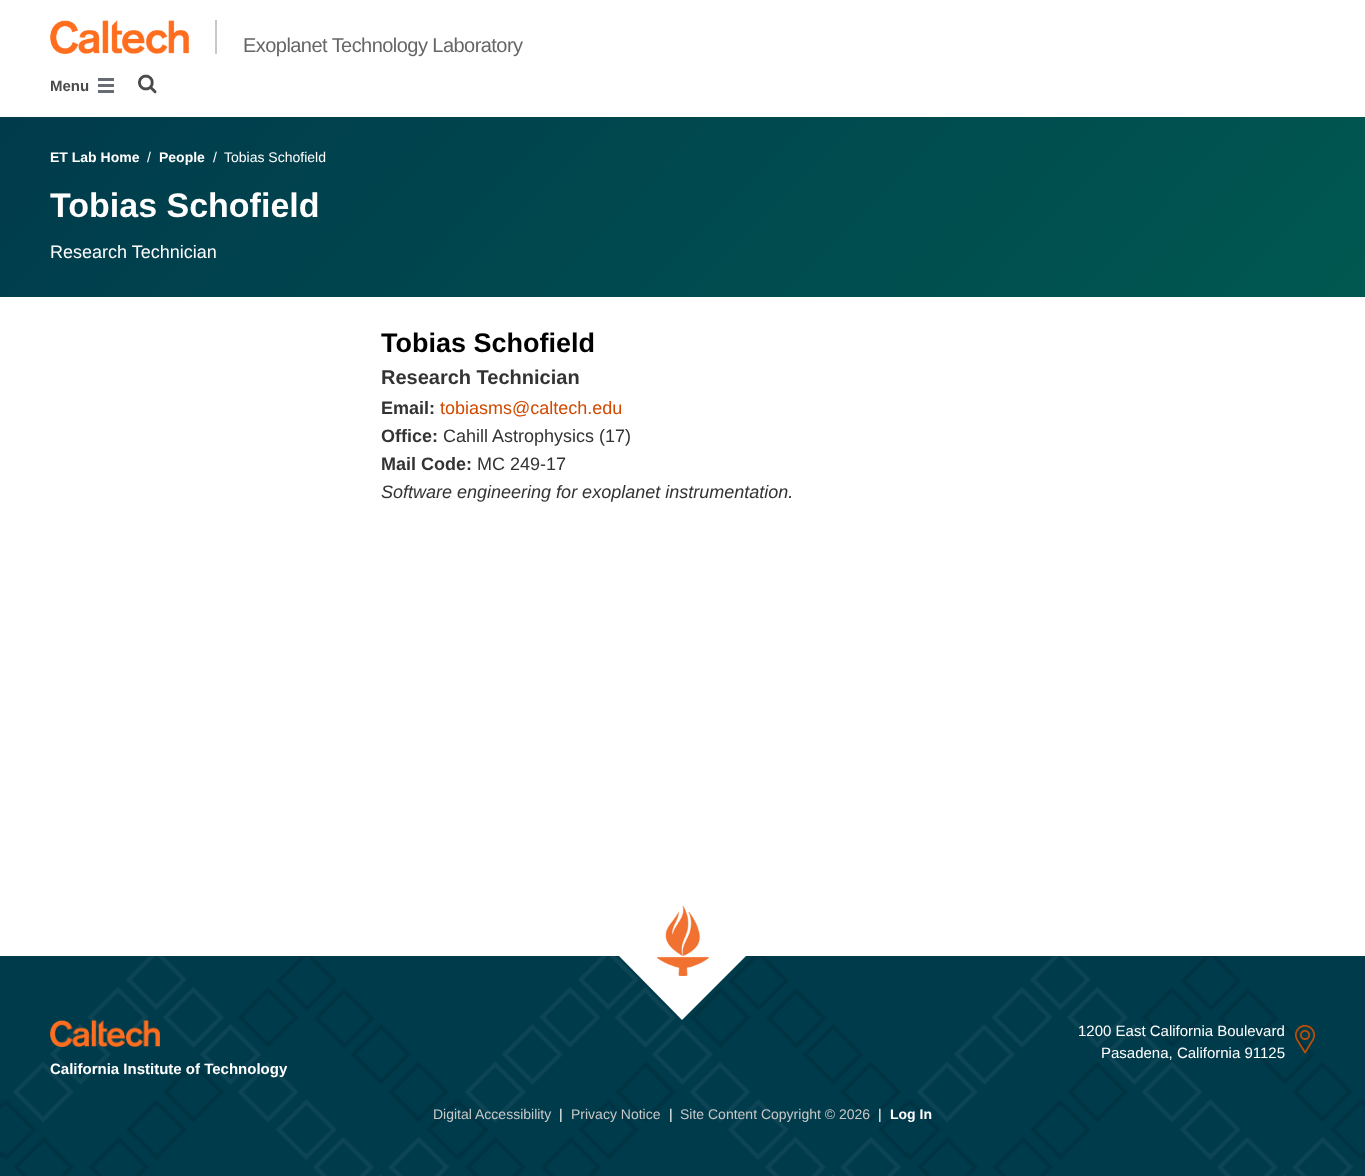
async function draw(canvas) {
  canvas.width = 1365
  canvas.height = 1176
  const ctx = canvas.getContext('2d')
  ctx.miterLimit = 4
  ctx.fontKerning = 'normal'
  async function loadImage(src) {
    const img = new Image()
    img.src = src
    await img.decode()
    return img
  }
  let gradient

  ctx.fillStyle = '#fff'
  ctx.fillRect(0, 0, 1365, 1176)
  ctx.drawImage(await loadImage('image0.png'), 50, 20, 139, 34)
  ctx.fillStyle = '#c8c8c8'
  ctx.fillRect(215, 20, 2, 34)
  ctx.letterSpacing = '-0.55px'
  ctx.font = '20px Liberation Sans'
  ctx.fillStyle = '#666'
  ctx.fillText('Exoplanet Technology Laboratory', 243, 52)
  ctx.letterSpacing = '0px'
  ctx.font = 'bold 15px Liberation Sans'
  ctx.fillStyle = '#4a4a4a'
  ctx.fillText('Menu', 50, 91)
  ctx.drawImage(await loadImage('image1.png'), 98, 78, 16, 15)
  ctx.drawImage(await loadImage('image2.png'), 138, 74, 19, 20)
  gradient = ctx.createLinearGradient(284, -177, 1081, 591)
  gradient.addColorStop(0, '#003b4c')
  gradient.addColorStop(1, '#005851')
  ctx.fillStyle = gradient
  ctx.fillRect(0, 117, 1365, 180)
  ctx.font = 'bold 14px Liberation Sans'
  ctx.fillStyle = '#fff'
  ctx.fillText('ET Lab Home', 50, 162)
  ctx.font = '14px Liberation Sans'
  ctx.fillText('/', 147, 162)
  ctx.font = 'bold 14px Liberation Sans'
  ctx.fillText('People', 159, 162)
  ctx.font = '14px Liberation Sans'
  ctx.fillText('/', 213, 162)
  ctx.fillText('Tobias Schofield', 224, 162)
  ctx.font = 'bold 34px Liberation Sans'
  ctx.fillText('Tobias Schofield', 50, 217)
  ctx.font = '18px Liberation Sans'
  ctx.fillText('Research Technician', 50, 258)
  ctx.font = 'bold 27px Liberation Sans'
  ctx.fillStyle = '#000'
  ctx.fillText('Tobias Schofield', 381, 352)
  ctx.font = 'bold 20px Liberation Sans'
  ctx.fillStyle = '#333'
  ctx.fillText('Research Technician', 381, 384)
  ctx.font = 'bold 18px Liberation Sans'
  ctx.fillText('Email:', 381, 414)
  ctx.font = '18px Liberation Sans'
  ctx.fillStyle = '#d14900'
  ctx.fillText('tobiasms@caltech.edu', 440, 414)
  ctx.font = 'bold 18px Liberation Sans'
  ctx.fillStyle = '#333'
  ctx.fillText('Office:', 381, 442)
  ctx.font = '18px Liberation Sans'
  ctx.fillText('Cahill Astrophysics (17)', 443, 442)
  ctx.font = 'bold 18px Liberation Sans'
  ctx.fillText('Mail Code:', 381, 470)
  ctx.font = '18px Liberation Sans'
  ctx.fillText('MC 249-17', 477, 470)
  ctx.font = 'italic 18px Liberation Sans'
  ctx.fillText('Software engineering for exoplanet instrumentation.', 381, 498)
  ctx.fillStyle = '#003b4c'
  ctx.fillRect(0, 956, 1365, 220)
  ctx.drawImage(await loadImage('image3.png'), 0, 956, 1365, 220)
  ctx.fillStyle = '#fff'
  ctx.beginPath()
  ctx.moveTo(682, 892)
  ctx.lineTo(746, 956)
  ctx.lineTo(682, 1020)
  ctx.lineTo(619, 956)
  ctx.closePath()
  ctx.fill()
  ctx.drawImage(await loadImage('image4.png'), 657, 906, 52, 70)
  ctx.font = '15px Liberation Sans'
  ctx.fillText('1200 East California Boulevard', 1078, 1036)
  ctx.drawImage(await loadImage('image5.png'), 1295, 1025, 20, 29)
  ctx.fillText('Pasadena, California 91125', 1101, 1058)
  ctx.drawImage(await loadImage('image6.png'), 50, 1020, 110, 27)
  ctx.font = 'bold 15px Liberation Sans'
  ctx.fillText('California Institute of Technology', 50, 1074)
  ctx.font = '14px Liberation Sans'
  ctx.fillStyle = '#c8c8c8'
  ctx.fillText('Digital Accessibility', 433, 1119)
  ctx.fillStyle = '#fff'
  ctx.fillText('|', 559, 1119)
  ctx.fillStyle = '#c8c8c8'
  ctx.fillText('Privacy Notice', 571, 1119)
  ctx.fillStyle = '#fff'
  ctx.fillText('|', 669, 1119)
  ctx.fillStyle = '#c8c8c8'
  ctx.fillText('Site Content Copyright © 2026', 680, 1119)
  ctx.fillStyle = '#fff'
  ctx.fillText('|', 878, 1119)
  ctx.font = 'bold 14px Liberation Sans'
  ctx.fillText('Log In', 890, 1119)
}

draw(document.querySelector('canvas'))
